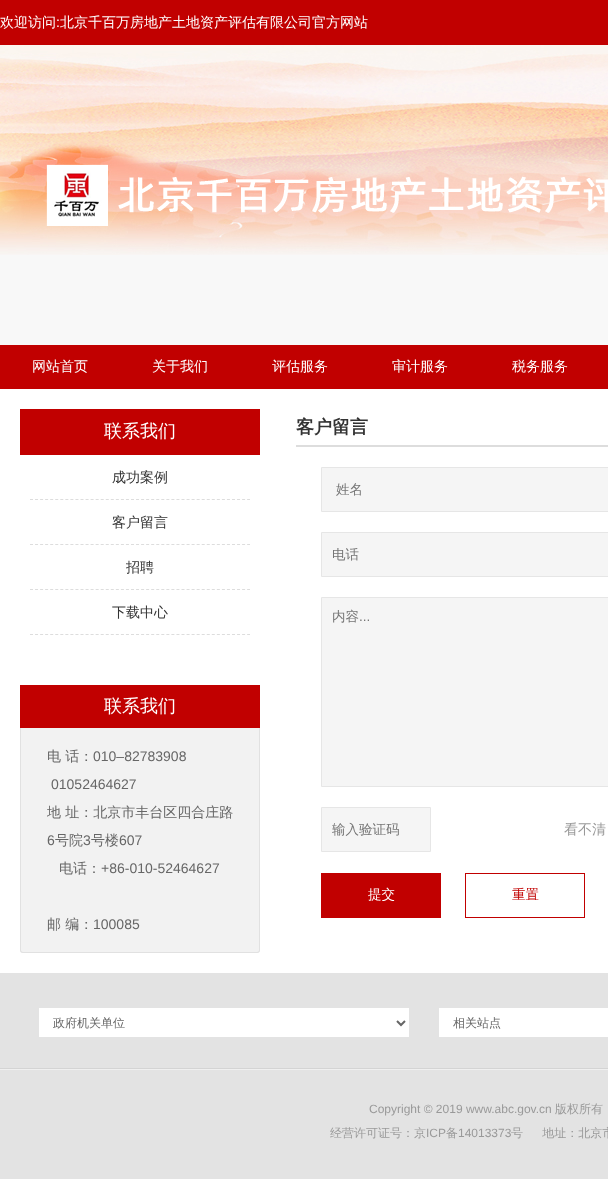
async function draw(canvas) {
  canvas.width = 608
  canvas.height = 1191
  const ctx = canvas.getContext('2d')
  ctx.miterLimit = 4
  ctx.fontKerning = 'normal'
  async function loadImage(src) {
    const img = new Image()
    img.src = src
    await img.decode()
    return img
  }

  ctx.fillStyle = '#fff'
  ctx.fillRect(0, 0, 608, 1191)
  ctx.fillStyle = '#f8f8f8'
  ctx.fillRect(0, 255, 608, 90)
  ctx.drawImage(await loadImage('image0.png'), 0, 45, 608, 210)
  ctx.fillStyle = '#c10000'
  ctx.fillRect(0, 0, 608, 45)
  ctx.font = '500 14px WenQuanYi Zen Hei'
  ctx.fillStyle = '#fff'
  ctx.fillText('欢迎访问', 0, 27)
  ctx.font = '14px Liberation Sans'
  ctx.fillText(':', 56, 27)
  ctx.font = '500 14px WenQuanYi Zen Hei'
  ctx.fillText('北京千百万房地产土地资产评估有限公司官方网站', 60, 27)
  ctx.drawImage(await loadImage('image1.png'), 46, 164, 562, 62)
  ctx.fillStyle = '#c10000'
  ctx.fillRect(0, 345, 608, 44)
  ctx.fillStyle = '#fff'
  ctx.fillText('网站首页', 32, 371)
  ctx.fillText('关于我们', 152, 371)
  ctx.fillText('评估服务', 272, 371)
  ctx.fillText('审计服务', 392, 371)
  ctx.fillText('税务服务', 512, 371)
  ctx.fillStyle = '#c10000'
  ctx.fillRect(20, 409, 240, 46)
  ctx.font = '500 18px WenQuanYi Zen Hei'
  ctx.fillStyle = '#fff'
  ctx.fillText('联系我们', 104, 437)
  ctx.beginPath()
  ctx.moveTo(30, 499.5)
  ctx.lineTo(250, 499.5)
  ctx.strokeStyle = '#ddd'
  ctx.setLineDash([3, 2.05])
  ctx.stroke()
  ctx.font = '500 14px WenQuanYi Zen Hei'
  ctx.fillStyle = '#333'
  ctx.fillText('成功案例', 112, 482)
  ctx.beginPath()
  ctx.moveTo(30, 544.5)
  ctx.lineTo(250, 544.5)
  ctx.stroke()
  ctx.fillText('客户留言', 112, 527)
  ctx.beginPath()
  ctx.moveTo(30, 589.5)
  ctx.lineTo(250, 589.5)
  ctx.stroke()
  ctx.fillText('招聘', 126, 572)
  ctx.beginPath()
  ctx.moveTo(30, 634.5)
  ctx.lineTo(250, 634.5)
  ctx.stroke()
  ctx.fillText('下载中心', 112, 617)
  ctx.fillStyle = '#c10000'
  ctx.fillRect(20, 685, 240, 43)
  ctx.font = '500 18px WenQuanYi Zen Hei'
  ctx.fillStyle = '#fff'
  ctx.fillText('联系我们', 104, 712)
  ctx.fillStyle = '#f2f2f2'
  ctx.beginPath()
  ctx.roundRect(20, 728, 240, 225, [0, 0, 3, 3])
  ctx.fill()
  ctx.fillStyle = '#e1e1e1'
  ctx.beginPath()
  ctx.moveTo(20, 728)
  ctx.lineTo(260, 728)
  ctx.lineTo(260, 950)
  ctx.bezierCurveTo(260, 952, 259, 953, 257, 953)
  ctx.lineTo(23, 953)
  ctx.bezierCurveTo(21, 953, 20, 952, 20, 950)
  ctx.closePath()
  ctx.moveTo(21, 728)
  ctx.lineTo(259, 728)
  ctx.lineTo(259, 950)
  ctx.bezierCurveTo(259, 951, 258, 952, 257, 952)
  ctx.lineTo(23, 952)
  ctx.bezierCurveTo(22, 952, 21, 951, 21, 950)
  ctx.closePath()
  ctx.fill('evenodd')
  ctx.font = '500 14px WenQuanYi Zen Hei'
  ctx.fillStyle = '#666'
  ctx.fillText('电 话：', 47, 761)
  ctx.font = '14px Liberation Sans'
  ctx.fillText('010–82783908', 93, 761)
  ctx.fillText('01052464627', 51, 789)
  ctx.font = '500 14px WenQuanYi Zen Hei'
  ctx.fillText('地 址：北京市丰台区四合庄路', 47, 817)
  ctx.font = '14px Liberation Sans'
  ctx.fillText('6', 47, 845)
  ctx.font = '500 14px WenQuanYi Zen Hei'
  ctx.fillText('号院', 55, 845)
  ctx.font = '14px Liberation Sans'
  ctx.fillText('3', 83, 845)
  ctx.font = '500 14px WenQuanYi Zen Hei'
  ctx.fillText('号楼', 91, 845)
  ctx.font = '14px Liberation Sans'
  ctx.fillText('607', 119, 845)
  ctx.font = '500 14px WenQuanYi Zen Hei'
  ctx.fillText('电话：', 59, 873)
  ctx.font = '14px Liberation Sans'
  ctx.fillText('+86-010-52464627', 101, 873)
  ctx.font = '500 14px WenQuanYi Zen Hei'
  ctx.fillText('邮 编：', 47, 929)
  ctx.font = '14px Liberation Sans'
  ctx.fillText('100085', 93, 929)
  ctx.fillStyle = '#ddd'
  ctx.fillRect(296, 445, 312, 2)
  ctx.font = 'bold 18px WenQuanYi Zen Hei'
  ctx.fillStyle = '#333'
  ctx.fillText('客户留言', 296, 433)
  ctx.fillStyle = '#f5f5f5'
  ctx.beginPath()
  ctx.rect(321.5, 467.5, 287, 44)
  ctx.fill()
  ctx.strokeStyle = '#e6e6e6'
  ctx.setLineDash([])
  ctx.stroke()
  ctx.font = '500 13.5px WenQuanYi Zen Hei'
  ctx.fillStyle = '#757575'
  ctx.fillText('姓名', 336, 494)
  ctx.fillStyle = '#f5f5f5'
  ctx.beginPath()
  ctx.rect(321.5, 532.5, 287, 44)
  ctx.fill()
  ctx.stroke()
  ctx.fillStyle = '#757575'
  ctx.fillText('电话', 332, 559)
  ctx.fillStyle = '#f5f5f5'
  ctx.beginPath()
  ctx.rect(321.5, 597.5, 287, 189)
  ctx.fill()
  ctx.stroke()
  ctx.fillStyle = '#757575'
  ctx.fillText('内容', 332, 621)
  ctx.font = '13.5px Liberation Sans'
  ctx.fillText('...', 359, 621)
  ctx.fillStyle = '#f5f5f5'
  ctx.beginPath()
  ctx.rect(321.5, 807.5, 109, 44)
  ctx.fill()
  ctx.stroke()
  ctx.font = '500 13.5px WenQuanYi Zen Hei'
  ctx.fillStyle = '#757575'
  ctx.fillText('输入验证码', 332, 834)
  ctx.font = '500 14px WenQuanYi Zen Hei'
  ctx.fillStyle = '#999'
  ctx.fillText('看不清', 564, 834)
  ctx.fillStyle = '#c10000'
  ctx.fillRect(321, 873, 120, 45)
  ctx.font = '500 13.5px WenQuanYi Zen Hei'
  ctx.fillStyle = '#fff'
  ctx.fillText('提交', 368, 899)
  ctx.strokeStyle = '#c10000'
  ctx.strokeRect(465.5, 873.5, 119, 44)
  ctx.fillStyle = '#c10000'
  ctx.fillText('重置', 512, 899)
  ctx.fillStyle = '#e3e3e3'
  ctx.fillRect(0, 973, 608, 95)
  ctx.fillStyle = '#d4d4d4'
  ctx.fillRect(0, 1068, 608, 1)
  ctx.fillStyle = '#fff'
  ctx.fillRect(39, 1008, 370, 29)
  ctx.beginPath()
  ctx.moveTo(397, 1021)
  ctx.lineTo(401, 1025)
  ctx.lineTo(405, 1021)
  ctx.strokeStyle = '#666'
  ctx.lineWidth = 2
  ctx.stroke()
  ctx.font = '500 12px WenQuanYi Zen Hei'
  ctx.fillStyle = '#666'
  ctx.fillText('政府机关单位', 53, 1027)
  ctx.fillStyle = '#fff'
  ctx.fillRect(439, 1008, 169, 29)
  ctx.fillStyle = '#666'
  ctx.fillText('相关站点', 453, 1027)
  ctx.fillStyle = '#e3e3e3'
  ctx.fillRect(0, 1070, 608, 109)
  ctx.fillStyle = '#f0f0f0'
  ctx.fillRect(0, 1069, 608, 1)
  ctx.font = '12px Liberation Sans'
  ctx.fillStyle = '#999'
  ctx.fillText('Copyright © 2019 www.abc.gov.cn', 369, 1113)
  ctx.font = '500 12px WenQuanYi Zen Hei'
  ctx.fillText('版权所有', 555, 1113)
  ctx.fillText('经营许可证号：京', 330, 1137)
  ctx.font = '12px Liberation Sans'
  ctx.fillText('ICP', 426, 1137)
  ctx.font = '500 12px WenQuanYi Zen Hei'
  ctx.fillText('备', 446, 1137)
  ctx.font = '12px Liberation Sans'
  ctx.fillText('14013373', 458, 1137)
  ctx.font = '500 12px WenQuanYi Zen Hei'
  ctx.fillText('号 　 地址：北京市', 511, 1137)
}

draw(document.querySelector('canvas'))
